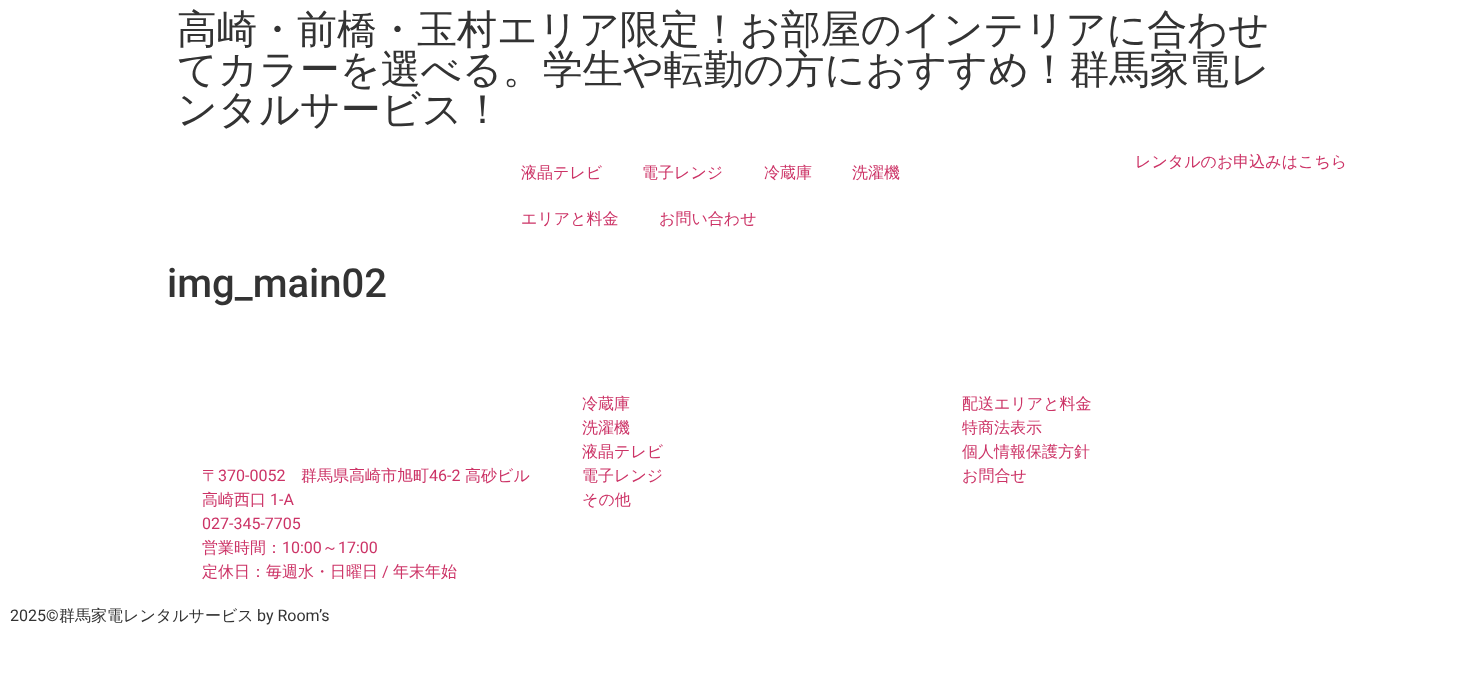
async function draw(canvas) {
  canvas.width = 1474
  canvas.height = 697
  const ctx = canvas.getContext('2d')
  ctx.miterLimit = 4
  ctx.fontKerning = 'normal'

  ctx.fillStyle = '#fff'
  ctx.fillRect(0, 0, 1474, 697)
  ctx.font = '500 40px WenQuanYi Zen Hei'
  ctx.fillStyle = '#333'
  ctx.fillText('高崎・前橋・玉村エリア限定！お部屋のインテリアに合わせ', 177, 43)
  ctx.fillText('てカラーを選べる。学生や転勤の方におすすめ！群馬家電レ', 177, 83)
  ctx.fillText('ンタルサービス！', 177, 123)
  ctx.font = '500 16px WenQuanYi Zen Hei'
  ctx.fillStyle = '#c36'
  ctx.fillText('レンタルのお申込みはこちら', 1135, 167)
  ctx.fillText('液晶テレビ', 521, 178)
  ctx.fillText('電子レンジ', 642, 178)
  ctx.fillText('冷蔵庫', 764, 178)
  ctx.fillText('洗濯機', 852, 178)
  ctx.fillText('エリアと料金', 521, 224)
  ctx.fillText('お問い合わせ', 659, 224)
  ctx.font = '500 40px Roboto'
  ctx.fillStyle = '#333'
  ctx.fillText('img_main02', 167, 297)
  ctx.font = '500 16px WenQuanYi Zen Hei'
  ctx.fillStyle = '#c36'
  ctx.fillText('冷蔵庫', 582, 409)
  ctx.fillText('洗濯機', 582, 433)
  ctx.fillText('液晶テレビ', 582, 457)
  ctx.fillText('電子レンジ', 582, 481)
  ctx.fillText('その他', 582, 505)
  ctx.fillText('配送エリアと料金', 962, 409)
  ctx.fillText('特商法表示', 962, 433)
  ctx.fillText('個人情報保護方針', 962, 457)
  ctx.fillText('お問合せ', 962, 481)
  ctx.fillText('〒', 202, 481)
  ctx.font = '16px Roboto'
  ctx.fillText('370-0052', 218, 481)
  ctx.font = '500 16px WenQuanYi Zen Hei'
  ctx.fillText('群馬県高崎市旭町', 301, 481)
  ctx.font = '16px Roboto'
  ctx.fillText('46-2', 429, 481)
  ctx.font = '500 16px WenQuanYi Zen Hei'
  ctx.fillText('高砂ビル', 465, 481)
  ctx.fillText('高崎西口', 202, 505)
  ctx.font = '16px Roboto'
  ctx.fillText('1-A', 270, 505)
  ctx.fillText('027-345-7705', 202, 529)
  ctx.font = '500 16px WenQuanYi Zen Hei'
  ctx.fillText('営業時間：', 202, 553)
  ctx.font = '16px Roboto'
  ctx.fillText('10:00', 282, 553)
  ctx.font = '500 16px WenQuanYi Zen Hei'
  ctx.fillText('～', 322, 553)
  ctx.font = '16px Roboto'
  ctx.fillText('17:00', 338, 553)
  ctx.font = '500 16px WenQuanYi Zen Hei'
  ctx.fillText('定休日：毎週水・日曜日', 202, 577)
  ctx.font = '16px Roboto'
  ctx.fillText('/', 382, 577)
  ctx.font = '500 16px WenQuanYi Zen Hei'
  ctx.fillText('年末年始', 393, 577)
  ctx.font = '16px Roboto'
  ctx.fillStyle = '#333'
  ctx.fillText('2025©︎', 10, 621)
  ctx.font = '500 16px WenQuanYi Zen Hei'
  ctx.fillText('群馬家電レンタルサービス', 59, 621)
  ctx.font = '16px Roboto'
  ctx.fillText('by Room’s', 257, 621)
}

draw(document.querySelector('canvas'))
